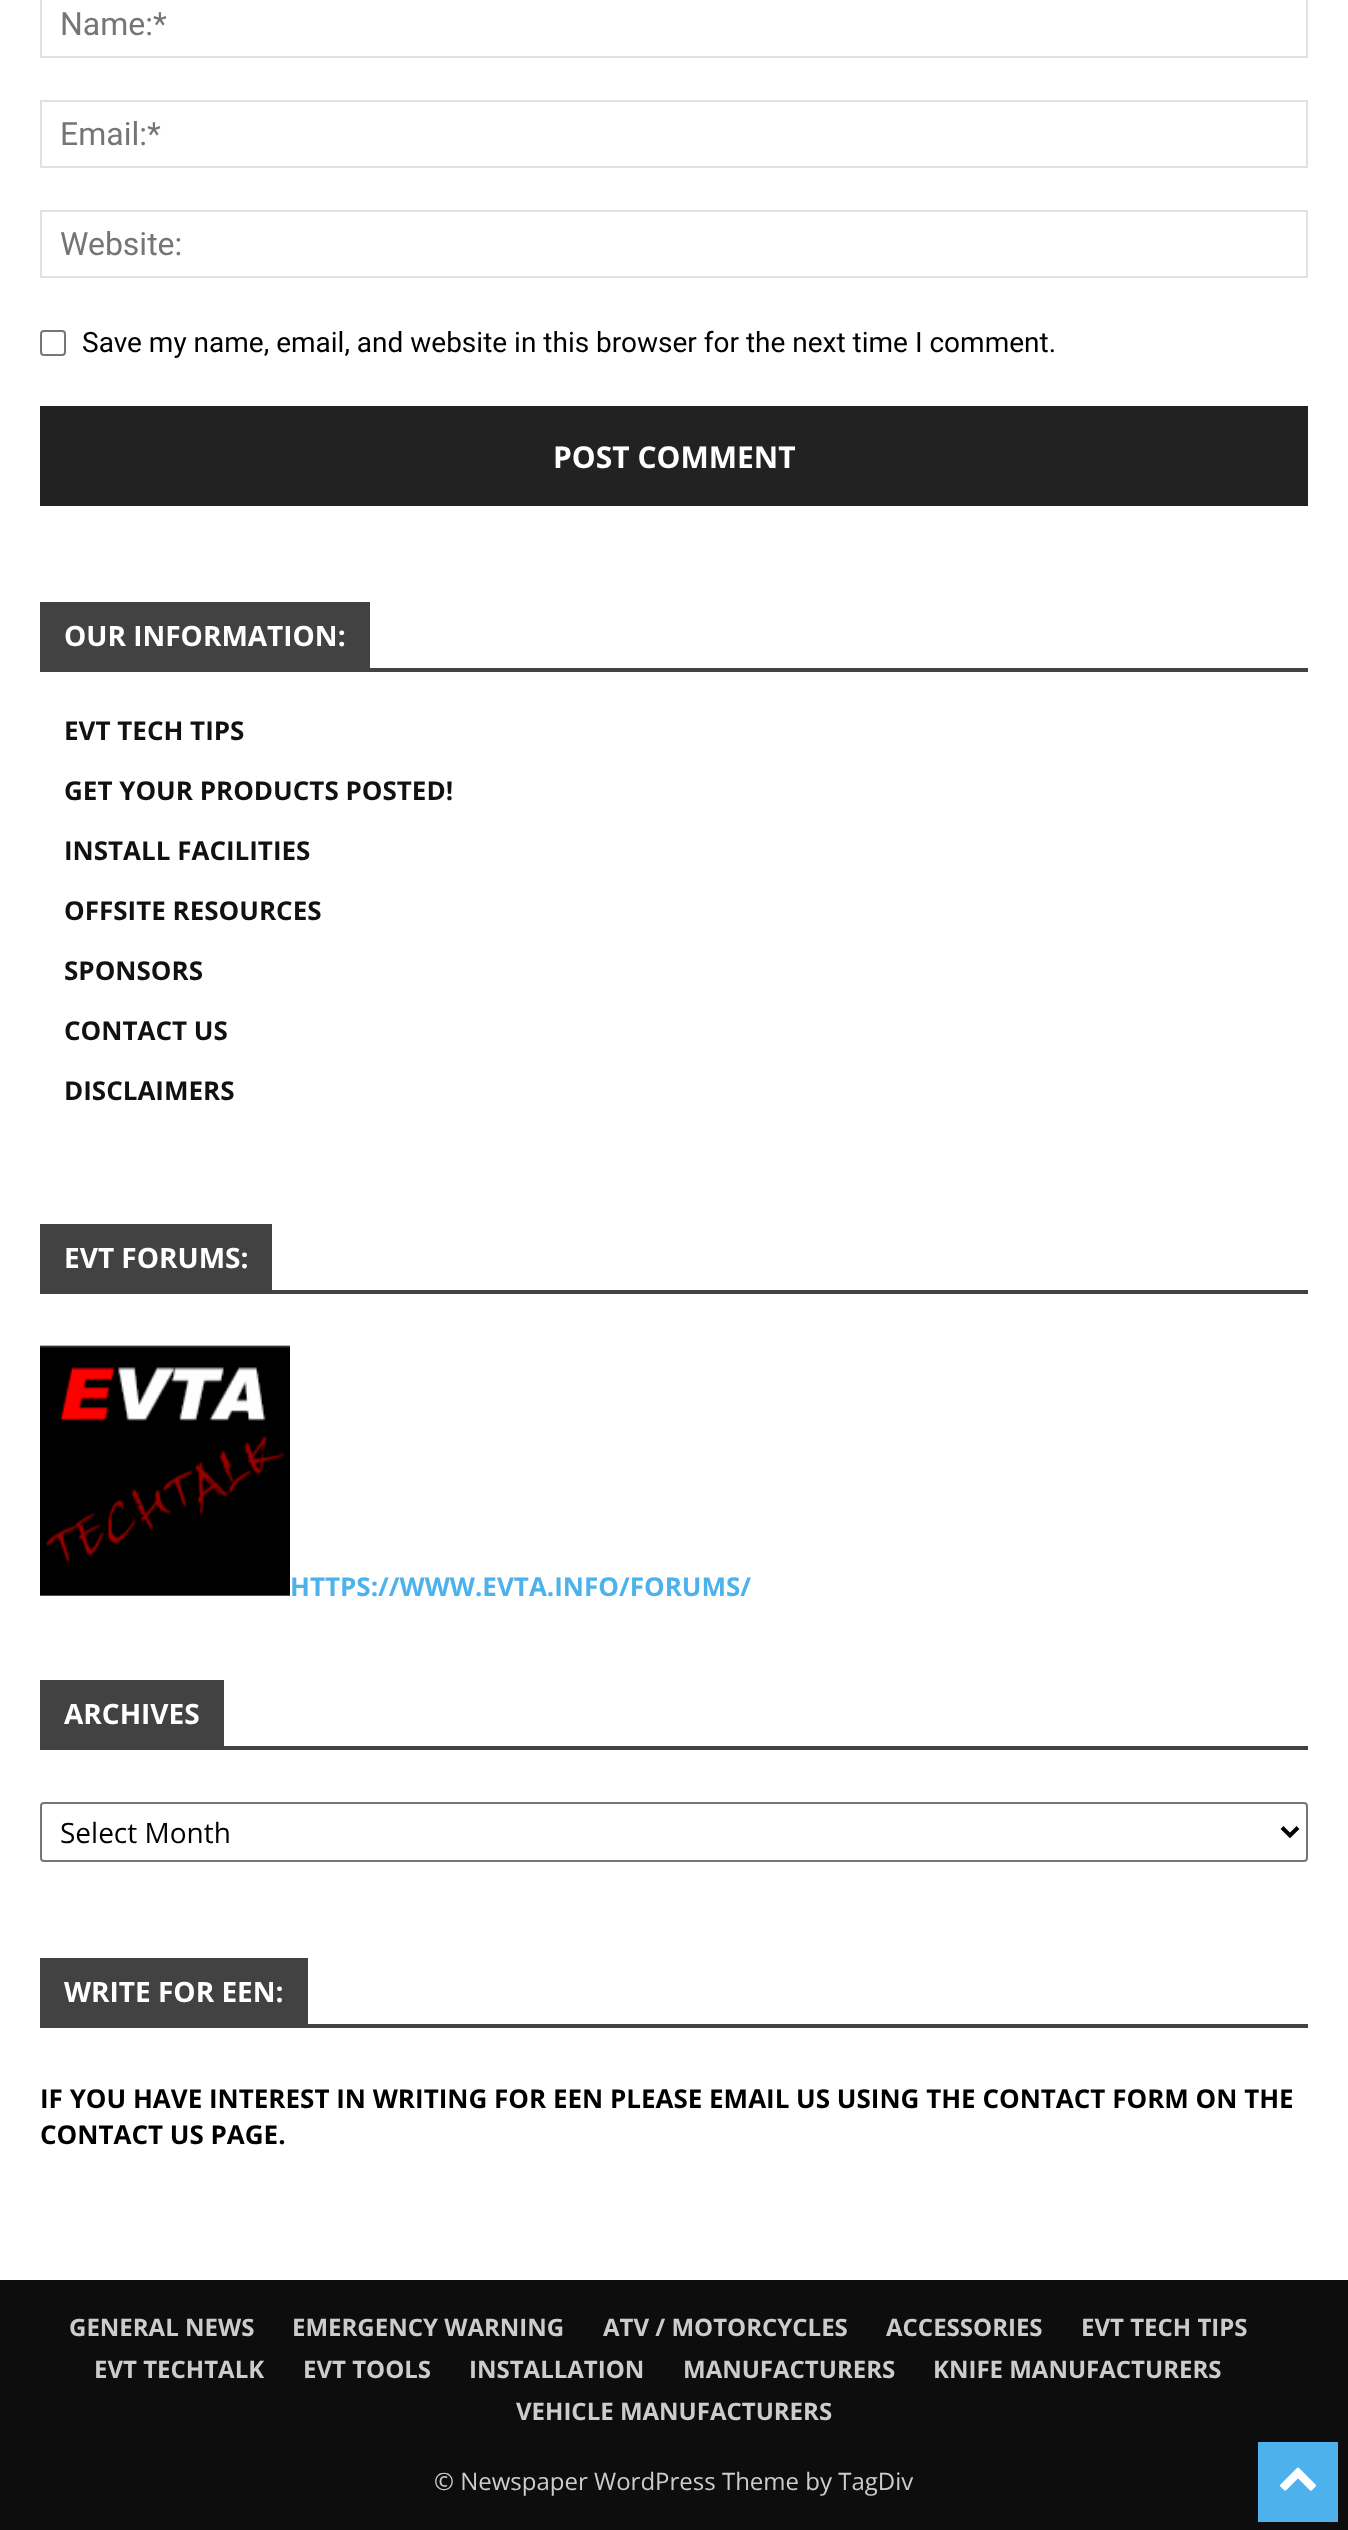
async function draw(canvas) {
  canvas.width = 1348
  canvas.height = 2530
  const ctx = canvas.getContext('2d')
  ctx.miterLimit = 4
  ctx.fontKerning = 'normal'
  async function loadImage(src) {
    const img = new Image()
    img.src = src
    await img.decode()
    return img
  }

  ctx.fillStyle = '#fff'
  ctx.fillRect(0, 0, 1348, 2530)
  ctx.strokeStyle = '#e1e1e1'
  ctx.lineWidth = 2
  ctx.strokeRect(41, -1, 1266, 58)
  ctx.font = '32px Roboto'
  ctx.fillStyle = '#757575'
  ctx.fillText('Name:*', 60, 35)
  ctx.strokeRect(41, 101, 1266, 66)
  ctx.fillText('Email:*', 60, 145)
  ctx.strokeRect(41, 211, 1266, 66)
  ctx.fillText('Website:', 60, 255)
  ctx.beginPath()
  ctx.roundRect(41, 331, 24, 24, 3)
  ctx.strokeStyle = '#767676'
  ctx.stroke()
  ctx.font = '28px Roboto'
  ctx.fillStyle = '#000'
  ctx.fillText('Save my name, email, and website in this browser for the next time I comment.', 82, 352)
  ctx.fillStyle = '#222'
  ctx.fillRect(40, 406, 1268, 100)
  ctx.font = 'bold 30px Open Sans'
  ctx.fillStyle = '#fff'
  ctx.fillText('POST COMMENT', 553, 468)
  ctx.fillStyle = '#424242'
  ctx.fillRect(40, 668, 1268, 4)
  ctx.fillRect(40, 602, 330, 66)
  ctx.font = 'bold 28px Open Sans'
  ctx.fillStyle = '#fff'
  ctx.fillText('OUR INFORMATION:', 64, 646)
  ctx.font = 'bold 26px Open Sans'
  ctx.fillStyle = '#111'
  ctx.fillText('EVT TECH TIPS', 64, 740)
  ctx.fillText('GET YOUR PRODUCTS POSTED!', 64, 800)
  ctx.fillText('INSTALL FACILITIES', 64, 860)
  ctx.fillText('OFFSITE RESOURCES', 64, 920)
  ctx.fillText('SPONSORS', 64, 980)
  ctx.fillText('CONTACT US', 64, 1040)
  ctx.fillText('DISCLAIMERS', 64, 1100)
  ctx.fillStyle = '#424242'
  ctx.fillRect(40, 1290, 1268, 4)
  ctx.fillRect(40, 1224, 232, 66)
  ctx.font = 'bold 28px Open Sans'
  ctx.fillStyle = '#fff'
  ctx.fillText('EVT FORUMS:', 64, 1268)
  ctx.drawImage(await loadImage('image0.png'), 40, 1345, 250, 251)
  ctx.font = 'bold 26px Open Sans'
  ctx.fillStyle = '#4db2ec'
  ctx.fillText('HTTPS://WWW.EVTA.INFO/FORUMS/', 290, 1596)
  ctx.fillStyle = '#424242'
  ctx.fillRect(40, 1746, 1268, 4)
  ctx.fillRect(40, 1680, 184, 66)
  ctx.font = 'bold 28px Open Sans'
  ctx.fillStyle = '#fff'
  ctx.fillText('ARCHIVES', 64, 1724)
  ctx.beginPath()
  ctx.roundRect(41, 1803, 1266, 58, 3)
  ctx.stroke()
  ctx.beginPath()
  ctx.moveTo(1282, 1827.5)
  ctx.lineTo(1290, 1835.5)
  ctx.lineTo(1298, 1827.5)
  ctx.strokeStyle = '#000'
  ctx.lineWidth = 4
  ctx.stroke()
  ctx.font = '28px Open Sans'
  ctx.fillStyle = '#000'
  ctx.fillText('Select Month', 60, 1843)
  ctx.fillStyle = '#424242'
  ctx.fillRect(40, 2024, 1268, 4)
  ctx.fillRect(40, 1958, 268, 66)
  ctx.font = 'bold 28px Open Sans'
  ctx.fillStyle = '#fff'
  ctx.fillText('WRITE FOR EEN:', 64, 2002)
  ctx.font = 'bold 26px Open Sans'
  ctx.fillStyle = '#000'
  ctx.fillText('IF YOU HAVE INTEREST IN WRITING FOR EEN PLEASE EMAIL US USING THE CONTACT FORM ON THE', 40, 2108)
  ctx.fillText('CONTACT US PAGE.', 40, 2144)
  ctx.fillStyle = '#0d0d0d'
  ctx.fillRect(0, 2280, 1348, 250)
  ctx.font = 'bold 24px Open Sans'
  ctx.fillStyle = '#ccc'
  ctx.fillText('GENERAL NEWS', 69, 2336)
  ctx.fillText('EMERGENCY WARNING', 292, 2336)
  ctx.fillText('ATV / MOTORCYCLES', 603, 2336)
  ctx.fillText('ACCESSORIES', 886, 2336)
  ctx.fillText('EVT TECH TIPS', 1081, 2336)
  ctx.fillText('EVT TECHTALK', 94, 2378)
  ctx.fillText('EVT TOOLS', 303, 2378)
  ctx.fillText('INSTALLATION', 469, 2378)
  ctx.fillText('MANUFACTURERS', 683, 2378)
  ctx.fillText('KNIFE MANUFACTURERS', 933, 2378)
  ctx.fillText('VEHICLE MANUFACTURERS', 516, 2420)
  ctx.font = '24px Open Sans'
  ctx.fillText('© Newspaper WordPress Theme by TagDiv', 434, 2490)
  ctx.fillStyle = '#4db2ec'
  ctx.fillRect(1258, 2442, 80, 80)
  ctx.drawImage(await loadImage('image1.png'), 1280, 2467, 36, 24)
}

draw(document.querySelector('canvas'))
